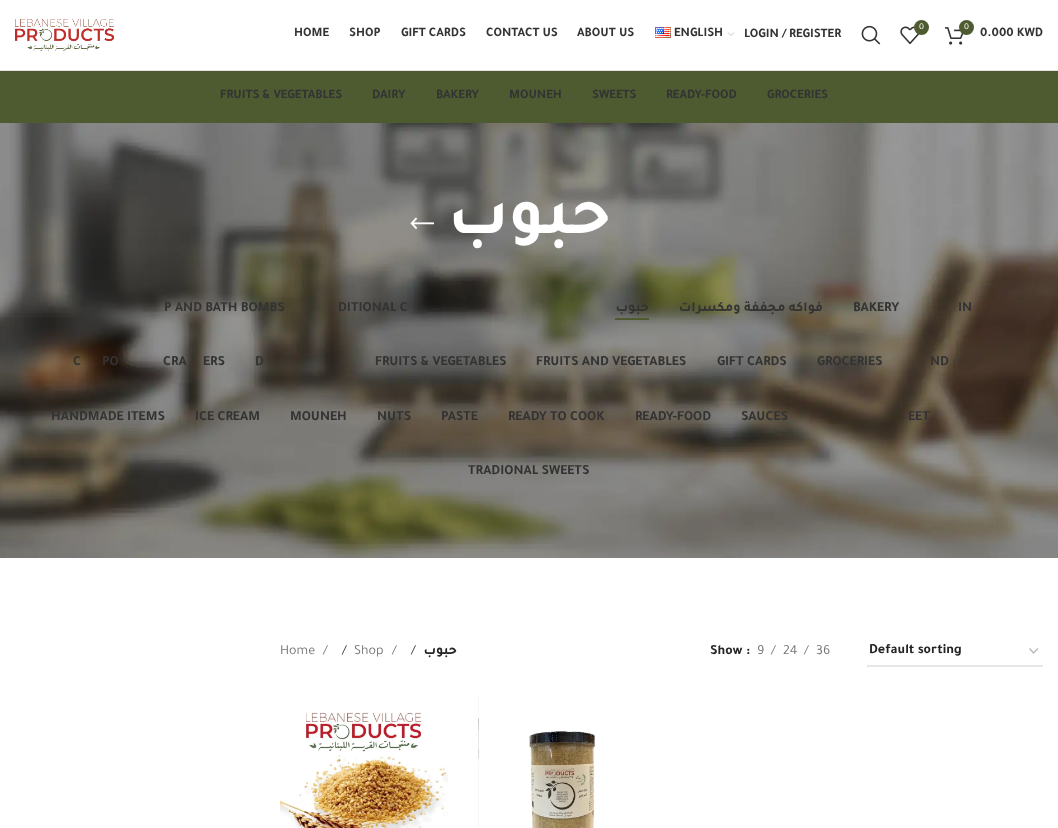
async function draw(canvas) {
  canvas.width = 1058
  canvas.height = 828
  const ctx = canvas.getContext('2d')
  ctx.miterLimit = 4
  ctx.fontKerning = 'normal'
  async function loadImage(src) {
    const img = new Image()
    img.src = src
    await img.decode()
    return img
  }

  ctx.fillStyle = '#fff'
  ctx.fillRect(0, 0, 1058, 828)
  ctx.fillStyle = '#e0e0e0'
  ctx.fillRect(0, 70, 1058, 1)
  ctx.drawImage(await loadImage('image0.png'), 15, 19, 99, 32)
  ctx.font = 'bold 13px Tajawal'
  ctx.fillStyle = '#333'
  ctx.fillText('HOME', 294, 36)
  ctx.fillText('SHOP', 349, 36)
  ctx.fillText('GIFT CARDS', 401, 36)
  ctx.fillText('CONTACT US', 486, 36)
  ctx.fillText('ABOUT US', 577, 36)
  ctx.drawImage(await loadImage('image1.png'), 655, 27, 16, 11)
  ctx.fillText('ENGLISH', 674, 36)
  ctx.drawImage(await loadImage('image2.png'), 728, 32, 6, 4)
  ctx.fillText('LOGIN / REGISTER', 744, 37)
  ctx.drawImage(await loadImage('image3.png'), 861, 25, 20, 20)
  ctx.drawImage(await loadImage('image4.png'), 900, 26, 20, 18)
  ctx.fillStyle = '#4e5b31'
  ctx.beginPath()
  ctx.arc(921.5, 27.5, 7.5, 0, 2 * Math.PI)
  ctx.fill()
  ctx.font = '9px Tajawal'
  ctx.fillStyle = '#fff'
  ctx.fillText('0', 919, 29)
  ctx.drawImage(await loadImage('image5.png'), 945, 27, 19, 18)
  ctx.fillStyle = '#4e5b31'
  ctx.beginPath()
  ctx.arc(966.5, 27.5, 7.5, 0, 2 * Math.PI)
  ctx.fill()
  ctx.fillStyle = '#fff'
  ctx.fillText('0', 964, 29)
  ctx.font = 'bold 13px Tajawal'
  ctx.fillStyle = '#333'
  ctx.fillText('0.000 KWD', 980, 36)
  ctx.fillStyle = '#4e5b31'
  ctx.fillRect(0, 71, 1058, 52)
  ctx.fillStyle = '#333'
  ctx.fillText('FRUITS & VEGETABLES', 220, 98)
  ctx.drawImage(await loadImage('image6.png'), 346, 95, 6, 3)
  ctx.fillText('DAIRY', 372, 98)
  ctx.drawImage(await loadImage('image6.png'), 410, 95, 6, 3)
  ctx.fillText('BAKERY', 436, 98)
  ctx.drawImage(await loadImage('image6.png'), 483, 95, 6, 3)
  ctx.fillText('MOUNEH', 509, 98)
  ctx.drawImage(await loadImage('image6.png'), 566, 95, 6, 3)
  ctx.fillText('SWEETS', 592, 98)
  ctx.drawImage(await loadImage('image6.png'), 640, 95, 6, 3)
  ctx.fillText('READY-FOOD', 666, 98)
  ctx.drawImage(await loadImage('image6.png'), 741, 95, 6, 3)
  ctx.fillText('GROCERIES', 767, 98)
  ctx.drawImage(await loadImage('image6.png'), 832, 95, 6, 3)
  ctx.drawImage(await loadImage('image7.png'), 0, 123, 1058, 435)
  ctx.drawImage(await loadImage('image8.png'), 410, 217, 24, 13)
  ctx.direction = 'rtl'
  ctx.font = 'bold 68px Tajawal'
  ctx.fillStyle = '#fff'
  ctx.fillText('حبوب', 611, 233)
  ctx.direction = 'ltr'
  ctx.font = 'bold 14px Tajawal'
  ctx.fillStyle = '#333'
  ctx.fillText('P AND BATH BOMBS', 164, 311)
  ctx.fillText('DITIONAL C', 338, 311)
  ctx.direction = 'rtl'
  ctx.fillText('حبوب', 649, 311)
  ctx.fillStyle = '#4e5b31'
  ctx.fillRect(615, 318, 34, 2)
  ctx.fillStyle = '#333'
  ctx.fillText('فواكه مجففة ومكسرات', 823, 311)
  ctx.direction = 'ltr'
  ctx.fillText('BAKERY', 853, 311)
  ctx.fillText('IN', 958, 311)
  ctx.fillText('C', 73, 365)
  ctx.fillText('PO', 102, 365)
  ctx.fillText('CRA', 163, 365)
  ctx.fillText('ERS', 203, 365)
  ctx.fillText('D', 255, 365)
  ctx.fillText('FRUITS & VEGETABLES', 375, 365)
  ctx.fillText('FRUITS AND VEGETABLES', 536, 365)
  ctx.fillText('GIFT CARDS', 717, 365)
  ctx.fillText('GROCERIES', 817, 365)
  ctx.fillText('ND', 930, 365)
  ctx.fillText('HANDMADE ITEMS', 51, 420)
  ctx.fillText('ICE CREAM', 195, 420)
  ctx.fillText('MOUNEH', 290, 420)
  ctx.fillText('NUTS', 377, 420)
  ctx.fillText('PASTE', 441, 420)
  ctx.fillText('READY TO COOK', 508, 420)
  ctx.fillText('READY-FOOD', 635, 420)
  ctx.fillText('SAUCES', 741, 420)
  ctx.fillText('EET', 908, 420)
  ctx.fillText('TRADIONAL SWEETS', 468, 474)
  ctx.font = '14px Tajawal'
  ctx.fillStyle = '#767676'
  ctx.fillText('Home', 280, 654)
  ctx.fillText('/', 323, 654)
  ctx.fillStyle = '#333'
  ctx.fillText('/', 342, 654)
  ctx.fillStyle = '#767676'
  ctx.fillText('Shop', 354, 654)
  ctx.fillText('/', 392, 654)
  ctx.fillStyle = '#333'
  ctx.fillText('/', 411, 654)
  ctx.direction = 'rtl'
  ctx.font = 'bold 14px Tajawal'
  ctx.fillStyle = '#242424'
  ctx.fillText('حبوب', 457, 654)
  ctx.direction = 'ltr'
  ctx.fillText('Show :', 710, 654)
  ctx.font = '14px Tajawal'
  ctx.fillStyle = '#767676'
  ctx.fillText('9', 757, 654)
  ctx.fillText('/', 771, 654)
  ctx.fillText('24', 783, 654)
  ctx.fillText('/', 804, 654)
  ctx.fillText('36', 816, 654)
  ctx.beginPath()
  ctx.moveTo(1029.5, 648.5)
  ctx.lineTo(1033.5, 653)
  ctx.lineTo(1038, 648.5)
  ctx.strokeStyle = '#bbb'
  ctx.lineWidth = 1.4
  ctx.stroke()
  ctx.fillStyle = '#e6e6e6'
  ctx.fillRect(867, 665, 176, 2)
  ctx.font = 'bold 14px Tajawal'
  ctx.fillStyle = '#242424'
  ctx.fillText('Default sorting', 869, 653)
  ctx.drawImage(await loadImage('image9.png'), 280, 712, 168, 116)
  ctx.drawImage(await loadImage('image10.png'), 478, 697, 118, 131)
}

draw(document.querySelector('canvas'))
